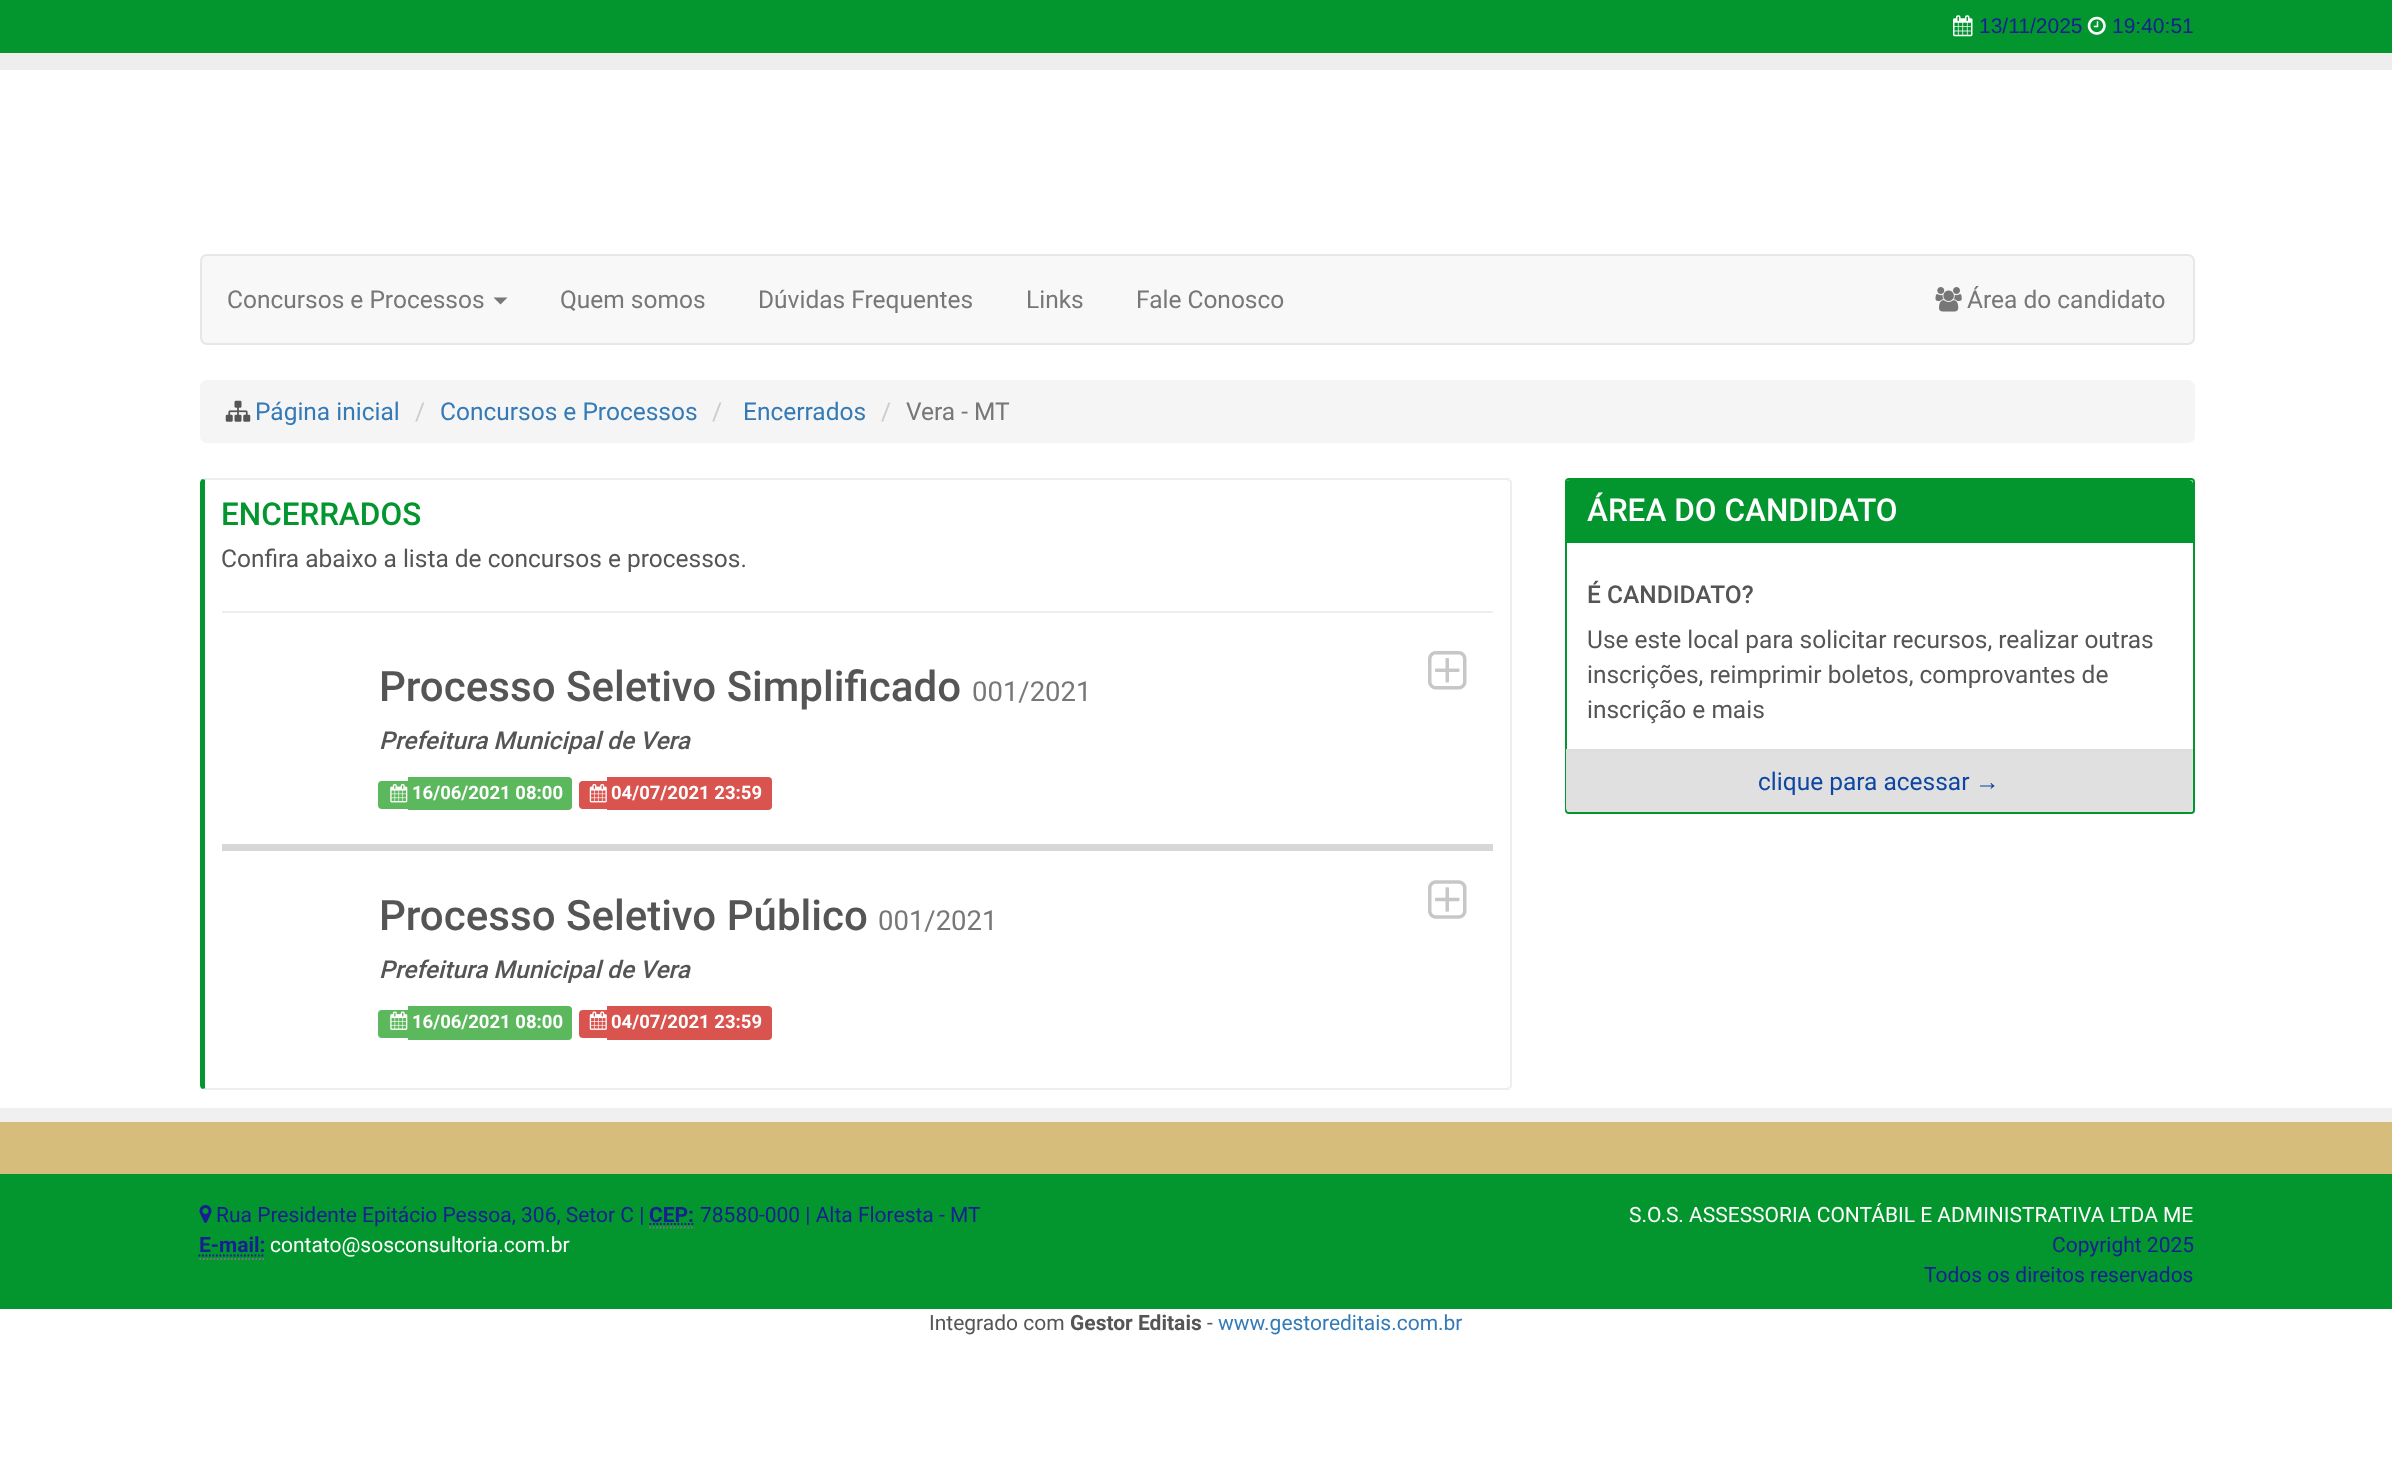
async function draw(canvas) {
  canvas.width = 2392
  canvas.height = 1471
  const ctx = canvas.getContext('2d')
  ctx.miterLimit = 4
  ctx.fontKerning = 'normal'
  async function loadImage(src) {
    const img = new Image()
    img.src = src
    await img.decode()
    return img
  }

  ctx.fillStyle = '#fff'
  ctx.fillRect(0, 0, 2392, 1471)
  ctx.fillStyle = '#03962e'
  ctx.fillRect(0, 0, 2392, 53)
  ctx.drawImage(await loadImage('image0.png'), 1953, 15, 20, 22)
  ctx.font = '21px Liberation Sans'
  ctx.fillStyle = '#171f91'
  ctx.fillText('13/11/2025', 1979, 33)
  ctx.drawImage(await loadImage('image1.png'), 2087, 16, 19, 19)
  ctx.fillText('19:40:51', 2112, 33)
  ctx.fillStyle = '#eee'
  ctx.fillRect(0, 53, 2392, 17)
  ctx.fillStyle = '#f8f8f8'
  ctx.beginPath()
  ctx.roundRect(201, 255, 1993, 89, 6)
  ctx.fill()
  ctx.strokeStyle = '#e7e7e7'
  ctx.lineWidth = 2
  ctx.stroke()
  ctx.font = '24.5px Roboto'
  ctx.fillStyle = '#777'
  ctx.fillText('Concursos e Processos', 227, 308)
  ctx.beginPath()
  ctx.moveTo(493.5, 297.5)
  ctx.lineTo(507.5, 297.5)
  ctx.lineTo(500.5, 304.5)
  ctx.closePath()
  ctx.fill()
  ctx.fillText('Quem somos', 560, 308)
  ctx.fillText('Dúvidas Frequentes', 758, 308)
  ctx.fillText('Links', 1026, 308)
  ctx.fillText('Fale Conosco', 1136, 308)
  ctx.drawImage(await loadImage('image2.png'), 1935, 287, 27, 25)
  ctx.fillText('Área do candidato', 1967, 308)
  ctx.fillStyle = '#f5f5f5'
  ctx.beginPath()
  ctx.roundRect(200, 380, 1995, 63, 7)
  ctx.fill()
  ctx.drawImage(await loadImage('image3.png'), 225, 400, 26, 22)
  ctx.fillStyle = '#337ab7'
  ctx.fillText('Página inicial', 255, 420)
  ctx.fillStyle = '#ccc'
  ctx.fillText('/', 415, 420)
  ctx.fillStyle = '#337ab7'
  ctx.fillText('Concursos e Processos', 440, 420)
  ctx.fillStyle = '#ccc'
  ctx.fillText('/', 712, 420)
  ctx.fillStyle = '#337ab7'
  ctx.fillText('Encerrados', 743, 420)
  ctx.fillStyle = '#ccc'
  ctx.fillText('/', 881, 420)
  ctx.fillStyle = '#777'
  ctx.fillText('Vera - MT', 906, 420)
  ctx.fillStyle = '#eee'
  ctx.beginPath()
  ctx.moveTo(205, 478)
  ctx.lineTo(202, 479)
  ctx.lineTo(206, 480)
  ctx.lineTo(1507, 480)
  ctx.lineTo(1509, 481)
  ctx.lineTo(1510, 479)
  ctx.bezierCurveTo(1510, 478, 1508, 478, 1507, 478)
  ctx.closePath()
  ctx.fill()
  ctx.beginPath()
  ctx.moveTo(1510, 479)
  ctx.bezierCurveTo(1511, 480, 1512, 481, 1512, 483)
  ctx.lineTo(1512, 1085)
  ctx.bezierCurveTo(1512, 1087, 1511, 1088, 1510, 1089)
  ctx.lineTo(1509, 1087)
  ctx.lineTo(1510, 1085)
  ctx.lineTo(1510, 483)
  ctx.lineTo(1509, 481)
  ctx.closePath()
  ctx.fill()
  ctx.beginPath()
  ctx.moveTo(1510, 1089)
  ctx.bezierCurveTo(1510, 1090, 1508, 1090, 1507, 1090)
  ctx.lineTo(205, 1090)
  ctx.lineTo(202, 1089)
  ctx.lineTo(206, 1088)
  ctx.lineTo(1507, 1088)
  ctx.lineTo(1509, 1087)
  ctx.closePath()
  ctx.fill()
  ctx.fillStyle = '#03962e'
  ctx.beginPath()
  ctx.moveTo(205, 480)
  ctx.lineTo(206, 480)
  ctx.lineTo(202, 479)
  ctx.bezierCurveTo(201, 480, 200, 481, 200, 483)
  ctx.lineTo(200, 1085)
  ctx.bezierCurveTo(200, 1087, 201, 1088, 202, 1089)
  ctx.lineTo(206, 1088)
  ctx.lineTo(205, 1088)
  ctx.closePath()
  ctx.fill()
  ctx.font = '500 31.5px Roboto'
  ctx.fillText('ENCERRADOS', 221, 525)
  ctx.font = '24.5px Roboto'
  ctx.fillStyle = '#555'
  ctx.fillText('Confira abaixo a lista de concursos e processos.', 221, 567)
  ctx.fillStyle = '#eee'
  ctx.fillRect(222, 611, 1271, 2)
  ctx.fillStyle = '#d7d7d7'
  ctx.fillRect(222, 844, 1271, 7)
  ctx.font = '500 42px Roboto'
  ctx.fillStyle = '#555'
  ctx.fillText('Processo Seletivo Simplificado', 379, 701)
  ctx.font = '27.5px Roboto'
  ctx.fillStyle = '#777'
  ctx.fillText('001/2021', 972, 701)
  ctx.font = 'italic 500 24.5px Roboto'
  ctx.fillStyle = '#555'
  ctx.fillText('Prefeitura Municipal de Vera', 379, 749)
  ctx.fillStyle = '#5cb85c'
  ctx.beginPath()
  ctx.roundRect(378, 781, 30, 28, [4, 0, 0, 4])
  ctx.fill()
  ctx.beginPath()
  ctx.roundRect(408, 777, 164, 33, [0, 4, 4, 0])
  ctx.fill()
  ctx.drawImage(await loadImage('image4.png'), 390, 784, 18, 19)
  ctx.font = 'bold 18.5px Roboto'
  ctx.fillStyle = '#fff'
  ctx.fillText('16/06/2021 08:00', 412, 799)
  ctx.fillStyle = '#d9534f'
  ctx.beginPath()
  ctx.roundRect(579, 781, 28, 28, [4, 0, 0, 4])
  ctx.fill()
  ctx.beginPath()
  ctx.roundRect(607, 777, 165, 33, [0, 4, 4, 0])
  ctx.fill()
  ctx.drawImage(await loadImage('image5.png'), 589, 784, 18, 19)
  ctx.fillStyle = '#fff'
  ctx.fillText('04/07/2021 23:59', 611, 799)
  ctx.drawImage(await loadImage('image6.png'), 1428, 651, 39, 39)
  ctx.font = '500 42px Roboto'
  ctx.fillStyle = '#555'
  ctx.fillText('Processo Seletivo Público', 379, 930)
  ctx.font = '27.5px Roboto'
  ctx.fillStyle = '#777'
  ctx.fillText('001/2021', 878, 930)
  ctx.font = 'italic 500 24.5px Roboto'
  ctx.fillStyle = '#555'
  ctx.fillText('Prefeitura Municipal de Vera', 379, 978)
  ctx.fillStyle = '#5cb85c'
  ctx.beginPath()
  ctx.roundRect(378, 1010, 30, 28, [4, 0, 0, 4])
  ctx.fill()
  ctx.beginPath()
  ctx.roundRect(408, 1006, 164, 34, [0, 4, 4, 0])
  ctx.fill()
  ctx.drawImage(await loadImage('image7.png'), 390, 1011, 18, 19)
  ctx.font = 'bold 18.5px Roboto'
  ctx.fillStyle = '#fff'
  ctx.fillText('16/06/2021 08:00', 412, 1028)
  ctx.fillStyle = '#d9534f'
  ctx.beginPath()
  ctx.roundRect(579, 1010, 28, 28, [4, 0, 0, 4])
  ctx.fill()
  ctx.beginPath()
  ctx.roundRect(607, 1006, 165, 34, [0, 4, 4, 0])
  ctx.fill()
  ctx.drawImage(await loadImage('image8.png'), 589, 1011, 18, 19)
  ctx.fillStyle = '#fff'
  ctx.fillText('04/07/2021 23:59', 611, 1028)
  ctx.drawImage(await loadImage('image9.png'), 1428, 880, 39, 39)
  ctx.beginPath()
  ctx.roundRect(1566, 479, 628, 334, 3)
  ctx.strokeStyle = '#03962e'
  ctx.stroke()
  ctx.fillStyle = '#03962e'
  ctx.beginPath()
  ctx.roundRect(1566, 480, 627, 63, [4, 4, 0, 0])
  ctx.fill()
  ctx.font = '500 31.5px Roboto'
  ctx.fillStyle = '#fff'
  ctx.fillText('ÁREA DO CANDIDATO', 1587, 521)
  ctx.font = '500 24.5px Roboto'
  ctx.fillStyle = '#555'
  ctx.fillText('É CANDIDATO?', 1587, 603)
  ctx.font = '24.5px Roboto'
  ctx.fillText('Use este local para solicitar recursos, realizar outras', 1587, 648)
  ctx.fillText('inscrições, reimprimir boletos, comprovantes de', 1587, 683)
  ctx.fillText('inscrição e mais', 1587, 718)
  ctx.fillStyle = '#e0e0e0'
  ctx.beginPath()
  ctx.roundRect(1566, 749, 627, 63, [0, 0, 4, 4])
  ctx.fill()
  ctx.fillStyle = '#ddd'
  ctx.fillRect(1566, 749, 627, 2)
  ctx.fillStyle = '#0d47a1'
  ctx.fillText('clique para acessar', 1758, 790)
  ctx.font = '24.5px Liberation Sans'
  ctx.fillText('→', 1975, 790)
  ctx.fillStyle = '#03962e'
  ctx.fillRect(0, 1174, 2392, 135)
  ctx.fillStyle = '#f1f0f0'
  ctx.fillRect(0, 1108, 2392, 14)
  ctx.fillStyle = '#d7bd7b'
  ctx.fillRect(0, 1122, 2392, 52)
  ctx.drawImage(await loadImage('image10.png'), 199, 1205, 13, 18)
  ctx.font = '21px Roboto'
  ctx.fillStyle = '#171f91'
  ctx.fillText('Rua Presidente Epitácio Pessoa, 306, Setor C |', 216, 1222)
  ctx.font = 'bold 21px Roboto'
  ctx.fillText('CEP:', 649, 1222)
  ctx.beginPath()
  ctx.moveTo(649, 1227.5)
  ctx.lineTo(695, 1227.5)
  ctx.strokeStyle = '#777'
  ctx.lineWidth = 1.8
  ctx.setLineDash([1.75, 1.75])
  ctx.stroke()
  ctx.beginPath()
  ctx.moveTo(649.5, 1224)
  ctx.lineTo(694.5, 1224)
  ctx.strokeStyle = '#171f91'
  ctx.stroke()
  ctx.font = '21px Roboto'
  ctx.fillText('78580-000 | Alta Floresta - MT', 700, 1222)
  ctx.font = 'bold 21px Roboto'
  ctx.fillText('E-mail:', 199, 1252)
  ctx.beginPath()
  ctx.moveTo(199.5, 1259)
  ctx.lineTo(264, 1259)
  ctx.strokeStyle = '#777'
  ctx.stroke()
  ctx.beginPath()
  ctx.moveTo(198.5, 1255.5)
  ctx.lineTo(265, 1255.5)
  ctx.strokeStyle = '#171f91'
  ctx.stroke()
  ctx.font = '21px Roboto'
  ctx.fillStyle = '#fff'
  ctx.fillText('contato@sosconsultoria.com.br', 270, 1252)
  ctx.fillText('S.O.S. ASSESSORIA CONTÁBIL E ADMINISTRATIVA LTDA ME', 1629, 1222)
  ctx.fillStyle = '#171f91'
  ctx.fillText('Copyright 2025', 2052, 1252)
  ctx.fillText('Todos os direitos reservados', 1924, 1282)
  ctx.fillStyle = '#555'
  ctx.fillText('Integrado com', 929, 1330)
  ctx.font = 'bold 21px Roboto'
  ctx.fillText('Gestor Editais', 1070, 1330)
  ctx.font = '21px Roboto'
  ctx.fillText('-', 1207, 1330)
  ctx.fillStyle = '#337ab7'
  ctx.fillText('www.gestoreditais.com.br', 1218, 1330)
}

draw(document.querySelector('canvas'))
